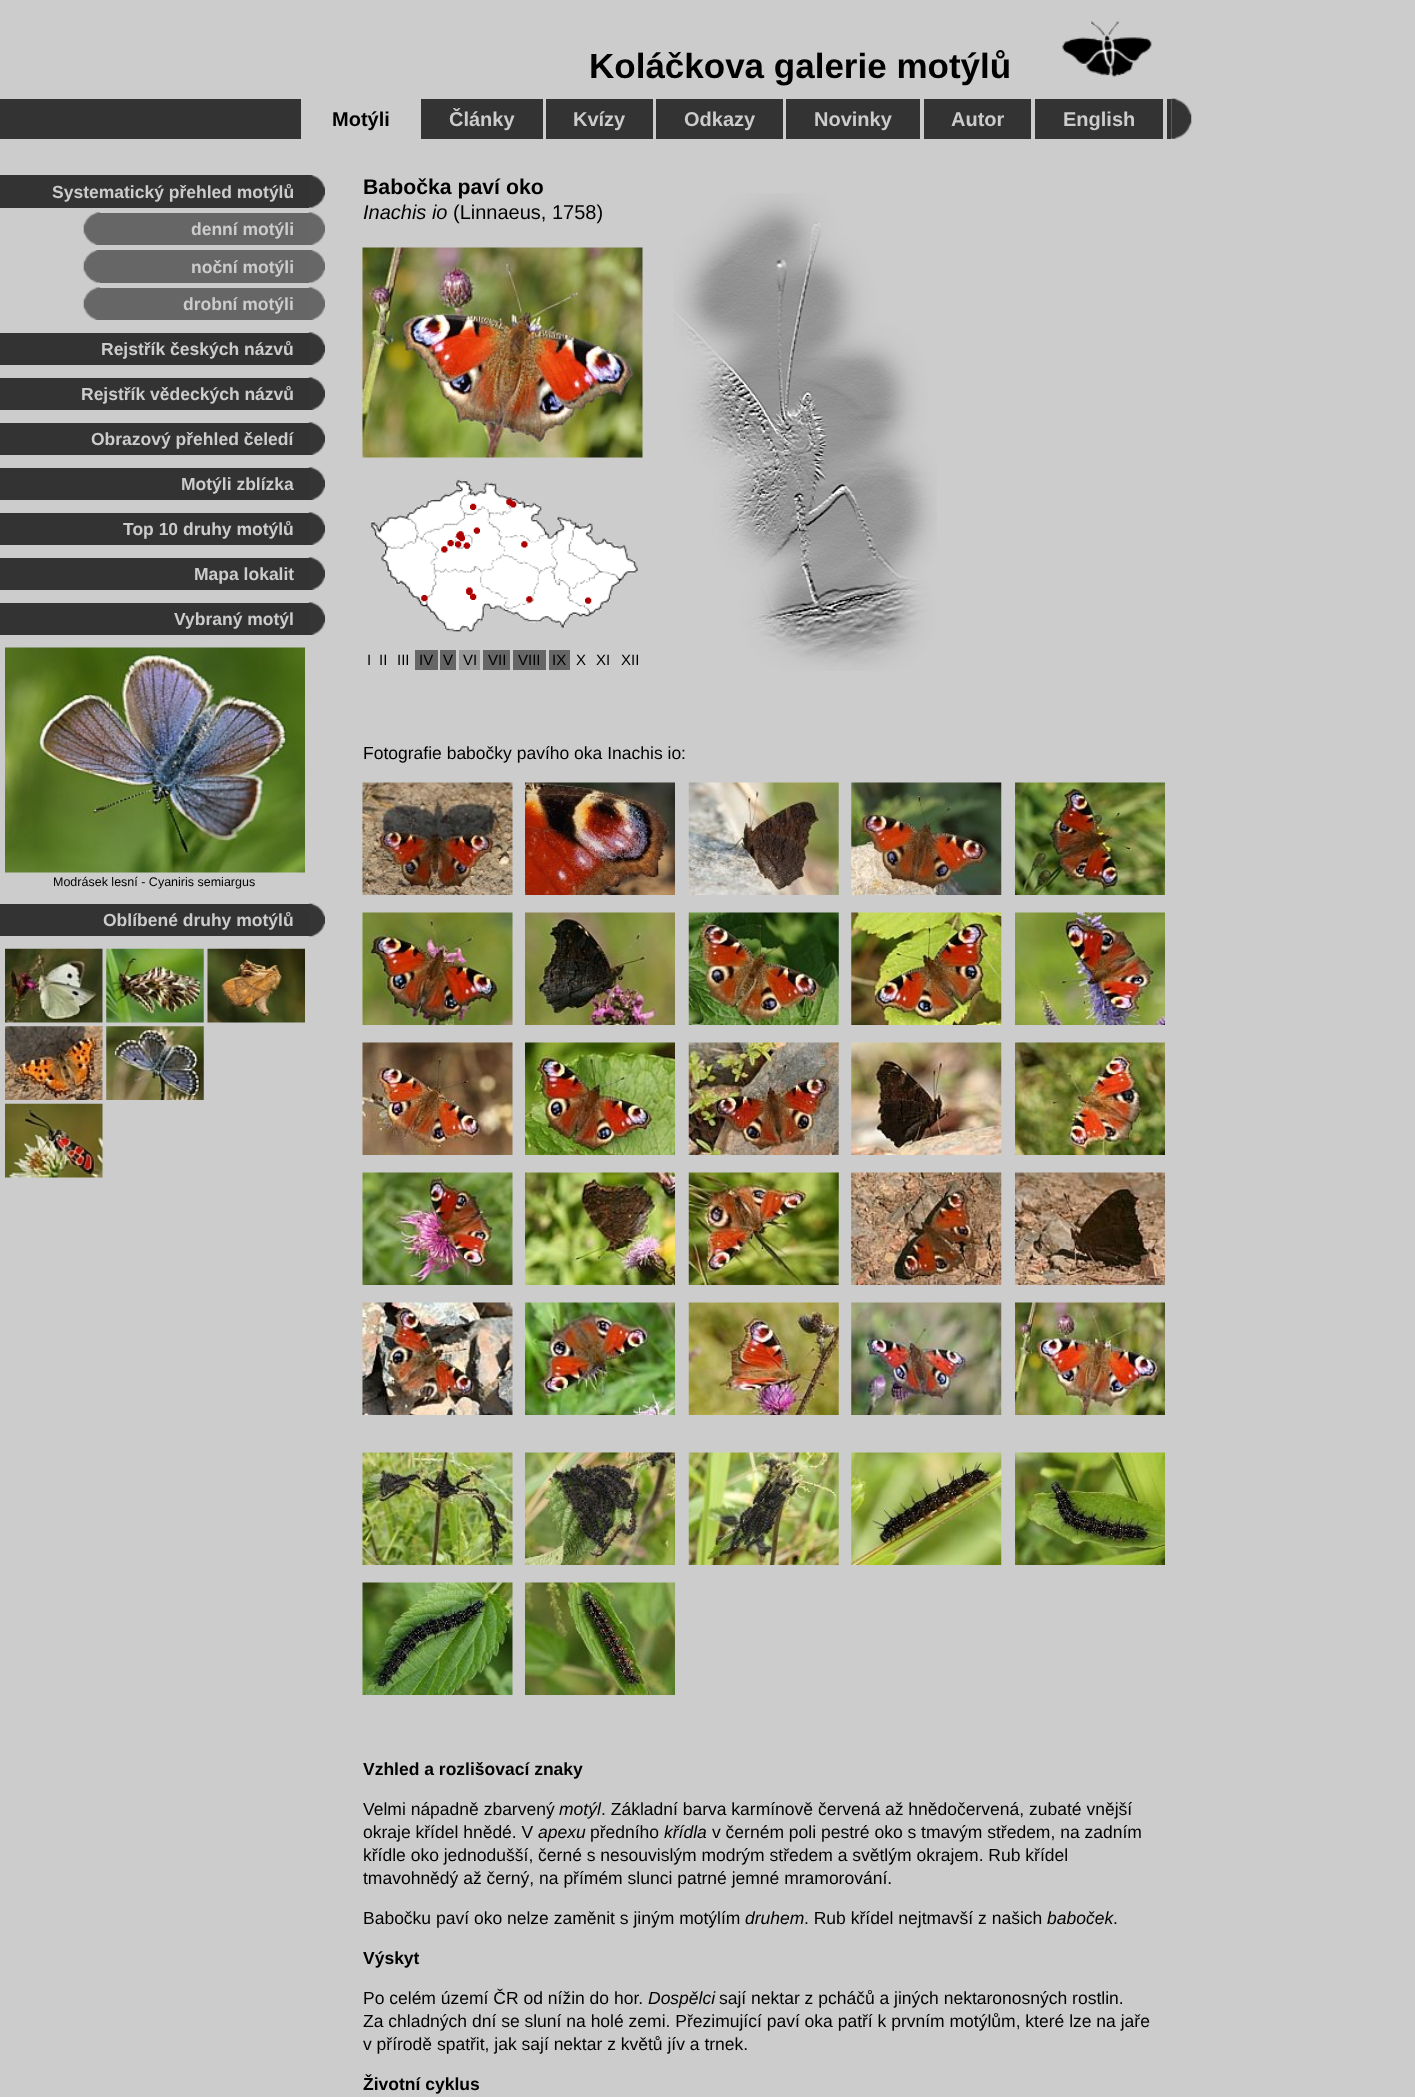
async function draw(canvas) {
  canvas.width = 1415
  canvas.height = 2097
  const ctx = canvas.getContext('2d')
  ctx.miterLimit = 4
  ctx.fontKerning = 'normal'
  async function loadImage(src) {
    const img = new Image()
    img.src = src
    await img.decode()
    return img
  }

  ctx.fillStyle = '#ccc'
  ctx.fillRect(0, 0, 1415, 2097)
  ctx.font = 'bold 35px Liberation Sans'
  ctx.fillStyle = '#000'
  ctx.fillText('Koláčkova galerie motýlů', 589, 78)
  ctx.drawImage(await loadImage('image0.png'), 1062, 21, 90, 56)
  ctx.fillStyle = '#333'
  ctx.fillRect(0, 99, 1171, 40)
  ctx.fillStyle = '#ccc'
  ctx.fillRect(301, 99, 120, 40)
  ctx.fillRect(543, 99, 3, 40)
  ctx.font = 'bold 20px Liberation Sans'
  ctx.fillText('Články', 449, 126)
  ctx.fillStyle = '#000'
  ctx.fillText('Motýli', 332, 126)
  ctx.fillStyle = '#ccc'
  ctx.fillRect(653, 99, 3, 40)
  ctx.fillText('Kvízy', 573, 126)
  ctx.fillRect(783, 99, 3, 40)
  ctx.fillText('Odkazy', 684, 126)
  ctx.fillRect(920, 99, 4, 40)
  ctx.fillText('Novinky', 814, 126)
  ctx.fillRect(1031, 99, 4, 40)
  ctx.fillText('Autor', 951, 126)
  ctx.fillRect(1163, 99, 4, 40)
  ctx.fillText('English', 1063, 126)
  ctx.drawImage(await loadImage('image1.png'), 1171, 98, 21, 41)
  ctx.fillStyle = '#333'
  ctx.fillRect(0, 175, 309, 33)
  ctx.font = 'bold 17.5px Liberation Sans'
  ctx.fillStyle = '#ccc'
  ctx.fillText('Systematický přehled motýlů', 52, 198)
  ctx.drawImage(await loadImage('image2.png'), 309, 175, 16, 33)
  ctx.drawImage(await loadImage('image3.png'), 83, 212, 17, 33)
  ctx.fillStyle = '#666'
  ctx.fillRect(100, 213, 209, 32)
  ctx.fillStyle = '#ccc'
  ctx.fillText('denní motýli', 191, 235)
  ctx.drawImage(await loadImage('image4.png'), 308, 212, 17, 33)
  ctx.drawImage(await loadImage('image5.png'), 83, 250, 17, 33)
  ctx.fillStyle = '#666'
  ctx.fillRect(100, 250, 209, 33)
  ctx.fillStyle = '#ccc'
  ctx.fillText('noční motýli', 191, 273)
  ctx.drawImage(await loadImage('image6.png'), 309, 250, 16, 33)
  ctx.drawImage(await loadImage('image7.png'), 83, 287, 17, 33)
  ctx.fillStyle = '#666'
  ctx.fillRect(100, 288, 209, 32)
  ctx.fillStyle = '#ccc'
  ctx.fillText('drobní motýli', 183, 310)
  ctx.drawImage(await loadImage('image8.png'), 308, 287, 17, 33)
  ctx.fillStyle = '#333'
  ctx.fillRect(0, 333, 309, 32)
  ctx.fillStyle = '#ccc'
  ctx.fillText('Rejstřík českých názvů', 101, 355)
  ctx.drawImage(await loadImage('image9.png'), 308, 332, 17, 33)
  ctx.fillStyle = '#333'
  ctx.fillRect(0, 378, 309, 32)
  ctx.fillStyle = '#ccc'
  ctx.fillText('Rejstřík vědeckých názvů', 81, 400)
  ctx.drawImage(await loadImage('image9.png'), 308, 377, 17, 33)
  ctx.fillStyle = '#333'
  ctx.fillRect(0, 423, 309, 32)
  ctx.fillStyle = '#ccc'
  ctx.fillText('Obrazový přehled čeledí', 91, 445)
  ctx.drawImage(await loadImage('image9.png'), 308, 422, 17, 33)
  ctx.fillStyle = '#333'
  ctx.fillRect(0, 468, 309, 32)
  ctx.fillStyle = '#ccc'
  ctx.fillText('Motýli zblízka', 181, 490)
  ctx.drawImage(await loadImage('image9.png'), 308, 467, 17, 33)
  ctx.fillStyle = '#333'
  ctx.fillRect(0, 513, 309, 32)
  ctx.fillStyle = '#ccc'
  ctx.fillText('Top 10 druhy motýlů', 123, 535)
  ctx.drawImage(await loadImage('image10.png'), 308, 512, 17, 33)
  ctx.fillStyle = '#333'
  ctx.fillRect(0, 558, 309, 32)
  ctx.fillStyle = '#ccc'
  ctx.fillText('Mapa lokalit', 194, 580)
  ctx.drawImage(await loadImage('image9.png'), 308, 557, 17, 33)
  ctx.fillStyle = '#333'
  ctx.fillRect(0, 603, 309, 32)
  ctx.fillStyle = '#ccc'
  ctx.fillText('Vybraný motýl', 174, 625)
  ctx.drawImage(await loadImage('image9.png'), 308, 602, 17, 33)
  ctx.drawImage(await loadImage('image11.png'), 5, 647, 300, 226)
  ctx.font = '12.5px Liberation Sans'
  ctx.fillStyle = '#000'
  ctx.fillText('Modrásek lesní - Cyaniris semiargus', 53, 886)
  ctx.fillStyle = '#333'
  ctx.fillRect(0, 904, 309, 32)
  ctx.font = 'bold 17.5px Liberation Sans'
  ctx.fillStyle = '#ccc'
  ctx.fillText('Oblíbené druhy motýlů', 103, 926)
  ctx.drawImage(await loadImage('image12.png'), 308, 903, 17, 34)
  ctx.drawImage(await loadImage('image13.png'), 5, 948, 98, 75)
  ctx.drawImage(await loadImage('image14.png'), 106, 948, 98, 75)
  ctx.drawImage(await loadImage('image15.png'), 207, 948, 98, 75)
  ctx.drawImage(await loadImage('image16.png'), 5, 1026, 98, 74)
  ctx.drawImage(await loadImage('image17.png'), 106, 1026, 98, 74)
  ctx.drawImage(await loadImage('image18.png'), 5, 1103, 98, 75)
  ctx.font = 'bold 21.25px Liberation Sans'
  ctx.fillStyle = '#000'
  ctx.fillText('Babočka paví oko', 363, 194)
  ctx.font = 'italic 20px Liberation Sans'
  ctx.fillText('Inachis io', 363, 219)
  ctx.font = '20px Liberation Sans'
  ctx.fillText('(Linnaeus, 1758)', 453, 219)
  ctx.drawImage(await loadImage('image19.png'), 673, 193, 264, 478)
  ctx.drawImage(await loadImage('image20.png'), 362, 247, 281, 211)
  ctx.drawImage(await loadImage('image38.png'), 371, 479, 267, 153)
  ctx.drawImage(await loadImage('image21.png'), 470, 503, 7, 7)
  ctx.drawImage(await loadImage('image23.png'), 510, 501, 7, 7)
  ctx.drawImage(await loadImage('image22.png'), 506, 498, 7, 7)
  ctx.drawImage(await loadImage('image27.png'), 457, 534, 7, 6)
  ctx.drawImage(await loadImage('image26.png'), 456, 532, 3, 7)
  ctx.drawImage(await loadImage('image24.png'), 457, 531, 7, 6)
  ctx.drawImage(await loadImage('image25.png'), 473, 527, 7, 7)
  ctx.drawImage(await loadImage('image31.png'), 455, 541, 7, 7)
  ctx.drawImage(await loadImage('image28.png'), 458, 535, 7, 7)
  ctx.drawImage(await loadImage('image29.png'), 441, 546, 7, 7)
  ctx.drawImage(await loadImage('image30.png'), 447, 540, 7, 7)
  ctx.drawImage(await loadImage('image32.png'), 463, 542, 7, 7)
  ctx.drawImage(await loadImage('image29.png'), 521, 541, 7, 7)
  ctx.drawImage(await loadImage('image21.png'), 470, 593, 7, 7)
  ctx.drawImage(await loadImage('image34.png'), 466, 588, 7, 7)
  ctx.drawImage(await loadImage('image33.png'), 466, 587, 7, 7)
  ctx.drawImage(await loadImage('image35.png'), 421, 595, 7, 7)
  ctx.drawImage(await loadImage('image36.png'), 526, 596, 7, 7)
  ctx.drawImage(await loadImage('image37.png'), 585, 597, 7, 7)
  ctx.font = '15px Liberation Sans'
  ctx.fillText('I', 367, 665)
  ctx.fillText('II', 379, 665)
  ctx.fillText('III', 397, 665)
  ctx.fillStyle = '#666'
  ctx.fillRect(415, 650, 23, 20)
  ctx.fillStyle = '#000'
  ctx.fillText('IV', 419, 665)
  ctx.fillStyle = '#666'
  ctx.fillRect(440, 650, 16, 20)
  ctx.fillStyle = '#000'
  ctx.fillText('V', 443, 665)
  ctx.fillStyle = '#999'
  ctx.fillRect(459, 650, 21, 20)
  ctx.fillStyle = '#000'
  ctx.fillText('VI', 463, 665)
  ctx.fillStyle = '#666'
  ctx.fillRect(483, 650, 27, 20)
  ctx.fillStyle = '#000'
  ctx.fillText('VII', 488, 665)
  ctx.fillStyle = '#666'
  ctx.fillRect(513, 650, 33, 20)
  ctx.fillStyle = '#000'
  ctx.fillText('VIII', 518, 665)
  ctx.fillStyle = '#666'
  ctx.fillRect(549, 650, 21, 20)
  ctx.fillStyle = '#000'
  ctx.fillText('IX', 552, 665)
  ctx.fillText('X', 576, 665)
  ctx.fillText('XI', 596, 665)
  ctx.fillText('XII', 621, 665)
  ctx.font = '17.5px Liberation Sans'
  ctx.fillText('Fotografie babočky pavího oka Inachis io:', 363, 759)
  ctx.drawImage(await loadImage('image39.png'), 362, 782, 151, 113)
  ctx.drawImage(await loadImage('image40.png'), 525, 782, 150, 113)
  ctx.drawImage(await loadImage('image41.png'), 688, 782, 151, 113)
  ctx.drawImage(await loadImage('image42.png'), 851, 782, 151, 113)
  ctx.drawImage(await loadImage('image43.png'), 1015, 782, 150, 113)
  ctx.drawImage(await loadImage('image44.png'), 362, 912, 151, 113)
  ctx.drawImage(await loadImage('image45.png'), 525, 912, 150, 113)
  ctx.drawImage(await loadImage('image46.png'), 688, 912, 151, 113)
  ctx.drawImage(await loadImage('image47.png'), 851, 912, 151, 113)
  ctx.drawImage(await loadImage('image48.png'), 1015, 912, 150, 113)
  ctx.drawImage(await loadImage('image49.png'), 362, 1042, 151, 113)
  ctx.drawImage(await loadImage('image50.png'), 525, 1042, 150, 113)
  ctx.drawImage(await loadImage('image51.png'), 688, 1042, 151, 113)
  ctx.drawImage(await loadImage('image52.png'), 851, 1042, 151, 113)
  ctx.drawImage(await loadImage('image53.png'), 1015, 1042, 150, 113)
  ctx.drawImage(await loadImage('image54.png'), 362, 1172, 151, 113)
  ctx.drawImage(await loadImage('image55.png'), 525, 1172, 150, 113)
  ctx.drawImage(await loadImage('image56.png'), 688, 1172, 151, 113)
  ctx.drawImage(await loadImage('image57.png'), 851, 1172, 151, 113)
  ctx.drawImage(await loadImage('image58.png'), 1015, 1172, 150, 113)
  ctx.drawImage(await loadImage('image59.png'), 362, 1302, 151, 113)
  ctx.drawImage(await loadImage('image60.png'), 525, 1302, 150, 113)
  ctx.drawImage(await loadImage('image61.png'), 688, 1302, 151, 113)
  ctx.drawImage(await loadImage('image62.png'), 851, 1302, 151, 113)
  ctx.drawImage(await loadImage('image63.png'), 1015, 1302, 150, 113)
  ctx.drawImage(await loadImage('image64.png'), 362, 1452, 151, 113)
  ctx.drawImage(await loadImage('image65.png'), 525, 1452, 150, 113)
  ctx.drawImage(await loadImage('image66.png'), 688, 1452, 151, 113)
  ctx.drawImage(await loadImage('image67.png'), 851, 1452, 151, 113)
  ctx.drawImage(await loadImage('image68.png'), 1015, 1452, 150, 113)
  ctx.drawImage(await loadImage('image69.png'), 362, 1582, 151, 113)
  ctx.drawImage(await loadImage('image70.png'), 525, 1582, 150, 113)
  ctx.font = 'bold 17.5px Liberation Sans'
  ctx.fillText('Vzhled a rozlišovací znaky', 363, 1775)
  ctx.font = '17.5px Liberation Sans'
  ctx.fillText('Velmi nápadně zbarvený', 363, 1815)
  ctx.font = 'italic 17.5px Liberation Sans'
  ctx.fillText('motýl', 559, 1815)
  ctx.font = '17.5px Liberation Sans'
  ctx.fillText('. Základní barva karmínově červená až hnědočervená, zubaté vnější', 601, 1815)
  ctx.fillText('okraje křídel hnědé. V', 363, 1838)
  ctx.font = 'italic 17.5px Liberation Sans'
  ctx.fillText('apexu', 538, 1838)
  ctx.font = '17.5px Liberation Sans'
  ctx.fillText('předního', 590, 1838)
  ctx.font = 'italic 17.5px Liberation Sans'
  ctx.fillText('křídla', 664, 1838)
  ctx.font = '17.5px Liberation Sans'
  ctx.fillText('v černém poli pestré oko s tmavým středem, na zadním', 712, 1838)
  ctx.fillText('křídle oko jednodušší, černé s nesouvislým modrým středem a světlým okrajem. Rub křídel', 363, 1861)
  ctx.fillText('tmavohnědý až černý, na přímém slunci patrné jemné mramorování.', 363, 1884)
  ctx.fillText('Babočku paví oko nelze zaměnit s jiným motýlím', 363, 1924)
  ctx.font = 'italic 17.5px Liberation Sans'
  ctx.fillText('druhem', 745, 1924)
  ctx.font = '17.5px Liberation Sans'
  ctx.fillText('. Rub křídel nejtmavší z našich', 804, 1924)
  ctx.font = 'italic 17.5px Liberation Sans'
  ctx.fillText('baboček', 1047, 1924)
  ctx.font = '17.5px Liberation Sans'
  ctx.fillText('.', 1113, 1924)
  ctx.font = 'bold 17.5px Liberation Sans'
  ctx.fillText('Výskyt', 363, 1964)
  ctx.font = '17.5px Liberation Sans'
  ctx.fillText('Po celém území ČR od nížin do hor.', 363, 2004)
  ctx.font = 'italic 17.5px Liberation Sans'
  ctx.fillText('Dospělci', 648, 2004)
  ctx.font = '17.5px Liberation Sans'
  ctx.fillText('sají nektar z pcháčů a jiných nektaronosných rostlin.', 719, 2004)
  ctx.fillText('Za chladných dní se sluní na holé zemi. Přezimující paví oka patří k prvním motýlům, které lze na jaře', 363, 2027)
  ctx.fillText('v přírodě spatřit, jak sají nektar z květů jív a trnek.', 363, 2050)
  ctx.font = 'bold 17.5px Liberation Sans'
  ctx.fillText('Životní cyklus', 363, 2090)
}

draw(document.querySelector('canvas'))
